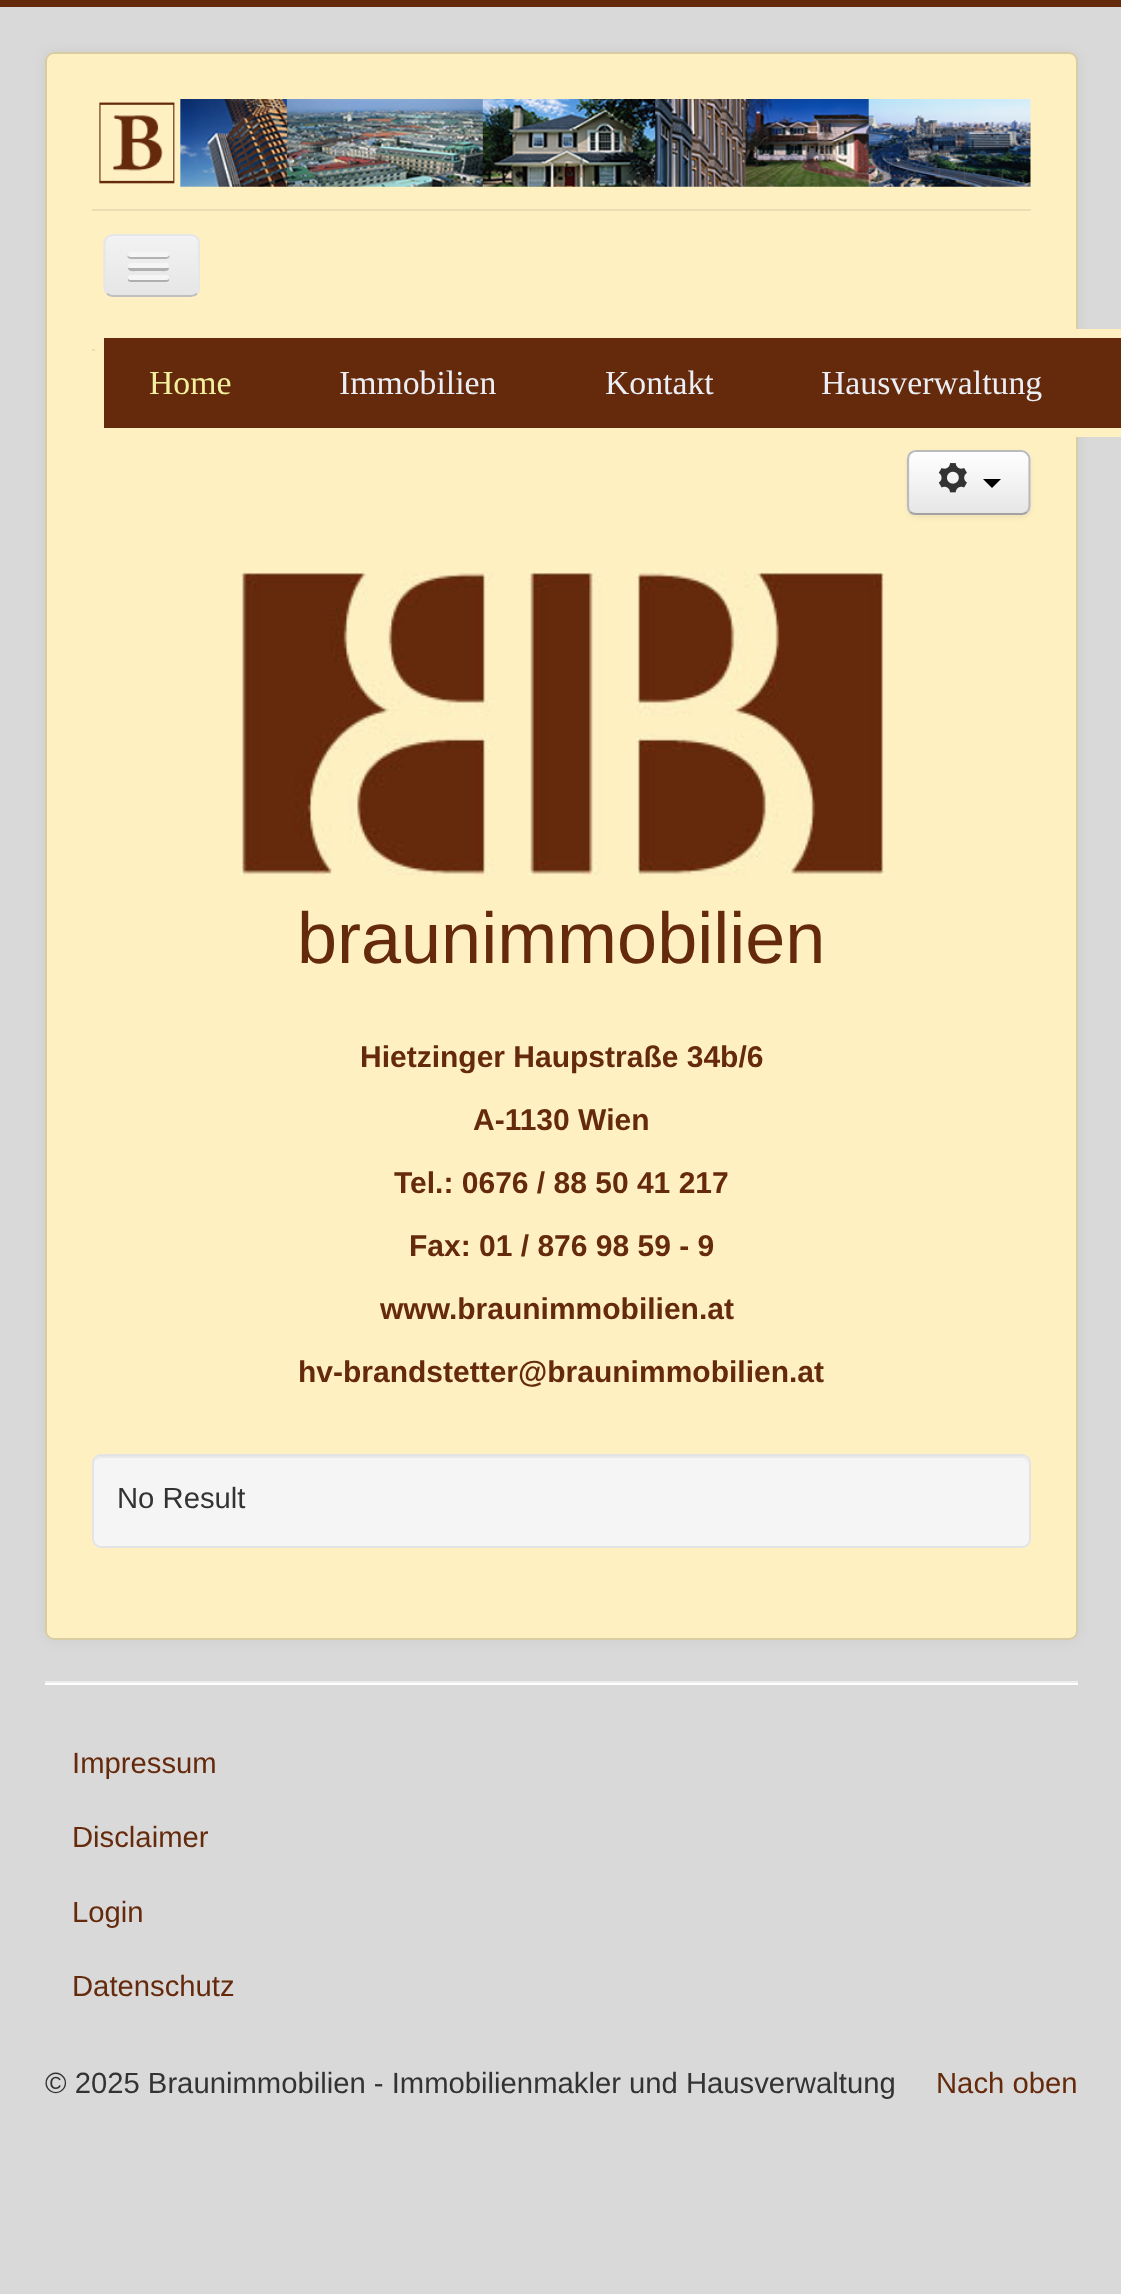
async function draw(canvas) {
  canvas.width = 1121
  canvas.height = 2294
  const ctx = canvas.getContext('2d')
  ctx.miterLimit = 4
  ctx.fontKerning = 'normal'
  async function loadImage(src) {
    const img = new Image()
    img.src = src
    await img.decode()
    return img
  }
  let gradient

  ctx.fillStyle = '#d9d9d9'
  ctx.fillRect(0, 0, 1121, 2294)
  ctx.fillStyle = '#652a0c'
  ctx.fillRect(0, 0, 1121, 7)
  ctx.fillStyle = '#0000000d'
  ctx.filter = 'blur(7px)'
  ctx.beginPath()
  ctx.roundRect(45, 52, 1033, 1588, 9)
  ctx.fill()
  ctx.filter = 'none'
  ctx.fillStyle = '#fef0c1'
  ctx.beginPath()
  ctx.roundRect(45, 52, 1033, 1588, 9)
  ctx.fill()
  ctx.beginPath()
  ctx.roundRect(46, 53, 1031, 1586, 8)
  ctx.strokeStyle = '#00000026'
  ctx.lineWidth = 2
  ctx.stroke()
  ctx.drawImage(await loadImage('image0.png'), 98, 99, 933, 88)
  ctx.fillStyle = '#ebdeb3'
  ctx.fillRect(92, 209, 939, 2)
  ctx.fillRect(92, 349, 3, 2)
  ctx.fillStyle = '#fef1c6'
  ctx.beginPath()
  ctx.moveTo(104, 291)
  ctx.bezierCurveTo(105, 296, 108, 299, 113, 299)
  ctx.lineTo(191, 299)
  ctx.bezierCurveTo(196, 299, 200, 295, 200, 290)
  ctx.bezierCurveTo(199, 294, 195, 297, 191, 297)
  ctx.lineTo(112, 297)
  ctx.bezierCurveTo(109, 297, 105, 295, 104, 291)
  ctx.closePath()
  ctx.fill()
  ctx.save()
  ctx.beginPath()
  ctx.roundRect(104, 234, 96, 63, 9)
  ctx.clip()
  gradient = ctx.createLinearGradient(152, 236, 152, 295)
  gradient.addColorStop(0, '#f2f2f2')
  gradient.addColorStop(1, '#e6e6e6')
  ctx.fillStyle = gradient
  ctx.fillRect(104, 236, 96, 59)
  ctx.restore()
  ctx.fillStyle = '#f3f3f3'
  ctx.beginPath()
  ctx.moveTo(112, 238)
  ctx.lineTo(191, 238)
  ctx.bezierCurveTo(195, 238, 198, 242, 198, 245)
  ctx.bezierCurveTo(198, 233, 187, 236, 178, 236)
  ctx.lineTo(126, 236)
  ctx.bezierCurveTo(117, 236, 106, 233, 106, 245)
  ctx.bezierCurveTo(106, 242, 109, 238, 112, 238)
  ctx.closePath()
  ctx.fill()
  ctx.beginPath()
  ctx.moveTo(197, 293.5)
  ctx.bezierCurveTo(195.5, 295, 193.5, 296, 191, 296)
  ctx.lineTo(112.5, 296)
  ctx.bezierCurveTo(110.5, 296, 108.5, 295, 107, 293.5)
  ctx.strokeStyle = '#bfbfbf'
  ctx.lineWidth = 2.2
  ctx.stroke()
  ctx.beginPath()
  ctx.moveTo(107, 293.5)
  ctx.bezierCurveTo(105.5, 292, 104.5, 290, 104.5, 288)
  ctx.lineTo(104.5, 243)
  ctx.bezierCurveTo(104.5, 241, 105.5, 239, 107, 237.5)
  ctx.bezierCurveTo(108.5, 236, 110.5, 235, 112.5, 235)
  ctx.lineTo(191, 235)
  ctx.bezierCurveTo(193.5, 235, 195.5, 236, 197, 237.5)
  ctx.bezierCurveTo(198.5, 239, 199, 241, 199, 243)
  ctx.lineTo(199, 288)
  ctx.bezierCurveTo(199, 290, 198.5, 292, 197, 293.5)
  ctx.strokeStyle = '#e6e6e6'
  ctx.stroke()
  ctx.fillStyle = '#b2b2b2'
  ctx.beginPath()
  ctx.moveTo(128, 255)
  ctx.bezierCurveTo(125, 260, 136, 259, 136, 259)
  ctx.lineTo(160, 259)
  ctx.bezierCurveTo(161, 259, 172, 260, 169, 255)
  ctx.bezierCurveTo(168, 256, 167, 256, 166, 256)
  ctx.lineTo(130, 256)
  ctx.bezierCurveTo(130, 256, 129, 256, 128, 255)
  ctx.closePath()
  ctx.fill()
  ctx.fillStyle = '#f5f5f5'
  ctx.beginPath()
  ctx.roundRect(128, 252, 41, 5, 2.5)
  ctx.fill()
  ctx.fillStyle = '#b0b0b0'
  ctx.beginPath()
  ctx.moveTo(129, 267)
  ctx.lineTo(128, 269)
  ctx.bezierCurveTo(129, 272, 135, 271, 136, 271)
  ctx.lineTo(160, 271)
  ctx.bezierCurveTo(162, 271, 168, 272, 169, 269)
  ctx.lineTo(168, 267)
  ctx.lineTo(167, 268)
  ctx.lineTo(130, 268)
  ctx.closePath()
  ctx.fill()
  ctx.fillStyle = '#f5f5f5'
  ctx.beginPath()
  ctx.roundRect(128, 263, 41, 5, 2.5)
  ctx.fill()
  ctx.fillStyle = '#afafaf'
  ctx.beginPath()
  ctx.moveTo(129, 278)
  ctx.bezierCurveTo(124, 283, 136, 282, 136, 282)
  ctx.lineTo(160, 282)
  ctx.bezierCurveTo(161, 282, 173, 283, 168, 278)
  ctx.lineTo(167, 279)
  ctx.lineTo(130, 279)
  ctx.closePath()
  ctx.fill()
  ctx.fillStyle = '#f5f5f5'
  ctx.beginPath()
  ctx.roundRect(128, 275, 41, 5, 2.5)
  ctx.fill()
  ctx.fillStyle = '#fef0c1'
  ctx.fillRect(1076, 329, 45, 108)
  ctx.fillStyle = '#652a0c'
  ctx.fillRect(104, 338, 1017, 90)
  ctx.font = '33.75px Liberation Serif'
  ctx.fillStyle = '#f0f09e'
  ctx.fillText('Home', 149, 394)
  ctx.fillStyle = '#ebeff5'
  ctx.fillText('Immobilien', 339, 394)
  ctx.fillText('Kontakt', 605, 394)
  ctx.fillText('Hausverwaltung', 821, 394)
  ctx.fillStyle = '#0000000d'
  ctx.filter = 'blur(2px)'
  ctx.beginPath()
  ctx.roundRect(907, 452, 124, 66, 9)
  ctx.fill()
  ctx.filter = 'none'
  ctx.fillStyle = '#f5f5f5'
  ctx.beginPath()
  ctx.roundRect(907, 450, 124, 65, 9)
  ctx.fill()
  ctx.save()
  ctx.beginPath()
  ctx.roundRect(907, 450, 124, 65, 9)
  ctx.clip()
  gradient = ctx.createLinearGradient(969, 452, 969, 513)
  gradient.addColorStop(0, '#fff')
  gradient.addColorStop(1, '#e6e6e6')
  ctx.fillStyle = gradient
  ctx.fillRect(907, 452, 124, 61)
  ctx.restore()
  ctx.beginPath()
  ctx.moveTo(1027, 512)
  ctx.bezierCurveTo(1025.5, 513.5, 1023.5, 514, 1021.5, 514)
  ctx.lineTo(916, 514)
  ctx.bezierCurveTo(913.5, 514, 911.5, 513.5, 910, 512)
  ctx.strokeStyle = '#a2a2a2'
  ctx.stroke()
  ctx.beginPath()
  ctx.moveTo(910, 512)
  ctx.bezierCurveTo(908.5, 510.5, 908, 508.5, 908, 506)
  ctx.lineTo(908, 459)
  ctx.bezierCurveTo(908, 457, 908.5, 455, 910, 453.5)
  ctx.bezierCurveTo(911.5, 452, 913.5, 451, 916, 451)
  ctx.lineTo(1021.5, 451)
  ctx.bezierCurveTo(1023.5, 451, 1025.5, 452, 1027, 453.5)
  ctx.bezierCurveTo(1028.5, 455, 1029.5, 457, 1029.5, 459)
  ctx.lineTo(1029.5, 506)
  ctx.bezierCurveTo(1029.5, 508.5, 1028.5, 510.5, 1027, 512)
  ctx.strokeStyle = '#bbb'
  ctx.stroke()
  ctx.drawImage(await loadImage('image1.png'), 938, 463, 29, 30)
  ctx.fillStyle = '#000'
  ctx.beginPath()
  ctx.moveTo(983, 479)
  ctx.lineTo(1001, 479)
  ctx.lineTo(992, 488)
  ctx.closePath()
  ctx.fill()
  ctx.drawImage(await loadImage('image2.png'), 241, 571, 644, 305)
  ctx.font = '72px Liberation Sans'
  ctx.fillStyle = '#652a0c'
  ctx.fillText('braunimmobilien', 297, 963)
  ctx.font = 'bold 30px Liberation Sans'
  ctx.fillText('Hietzinger Haupstraße 34b/6', 360, 1067)
  ctx.fillText('A-1130 Wien', 473, 1130)
  ctx.fillText('Tel.: 0676 / 88 50 41 217', 394, 1193)
  ctx.fillText('Fax: 01 / 876 98 59 - 9', 409, 1256)
  ctx.fillText('www.braunimmobilien.at', 380, 1319)
  ctx.fillText('hv-brandstetter@braunimmobilien.at', 298, 1382)
  ctx.fillStyle = '#f5f5f5'
  ctx.beginPath()
  ctx.roundRect(92, 1454, 939, 94, 9)
  ctx.fill()
  ctx.fillStyle = '#e9e9e9'
  ctx.beginPath()
  ctx.moveTo(101, 1458)
  ctx.lineTo(1022, 1458)
  ctx.bezierCurveTo(1025, 1458, 1028, 1461, 1028, 1465)
  ctx.lineTo(1028, 1463)
  ctx.bezierCurveTo(1028, 1459, 1025, 1456, 1021, 1456)
  ctx.lineTo(102, 1456)
  ctx.bezierCurveTo(99, 1456, 96, 1458, 95, 1461)
  ctx.bezierCurveTo(97, 1459, 99, 1458, 101, 1458)
  ctx.closePath()
  ctx.fill()
  ctx.beginPath()
  ctx.roundRect(93, 1455, 937, 92, 8)
  ctx.strokeStyle = '#e3e3e3'
  ctx.lineWidth = 2
  ctx.stroke()
  ctx.font = '29.25px Liberation Sans'
  ctx.fillStyle = '#333'
  ctx.fillText('No Result', 117, 1508)
  ctx.fillStyle = '#eee'
  ctx.fillRect(45, 1681, 1033, 2)
  ctx.fillStyle = '#fff'
  ctx.fillRect(45, 1683, 1033, 2)
  ctx.fillStyle = '#652a0c'
  ctx.fillText('Impressum', 72, 1773)
  ctx.fillText('Disclaimer', 72, 1847)
  ctx.fillText('Login', 72, 1922)
  ctx.fillText('Datenschutz', 72, 1996)
  ctx.fillStyle = '#333'
  ctx.fillText('© 2025 Braunimmobilien - Immobilienmakler und Hausverwaltung', 45, 2093)
  ctx.fillStyle = '#652a0c'
  ctx.fillText('Nach oben', 936, 2093)
}

draw(document.querySelector('canvas'))
